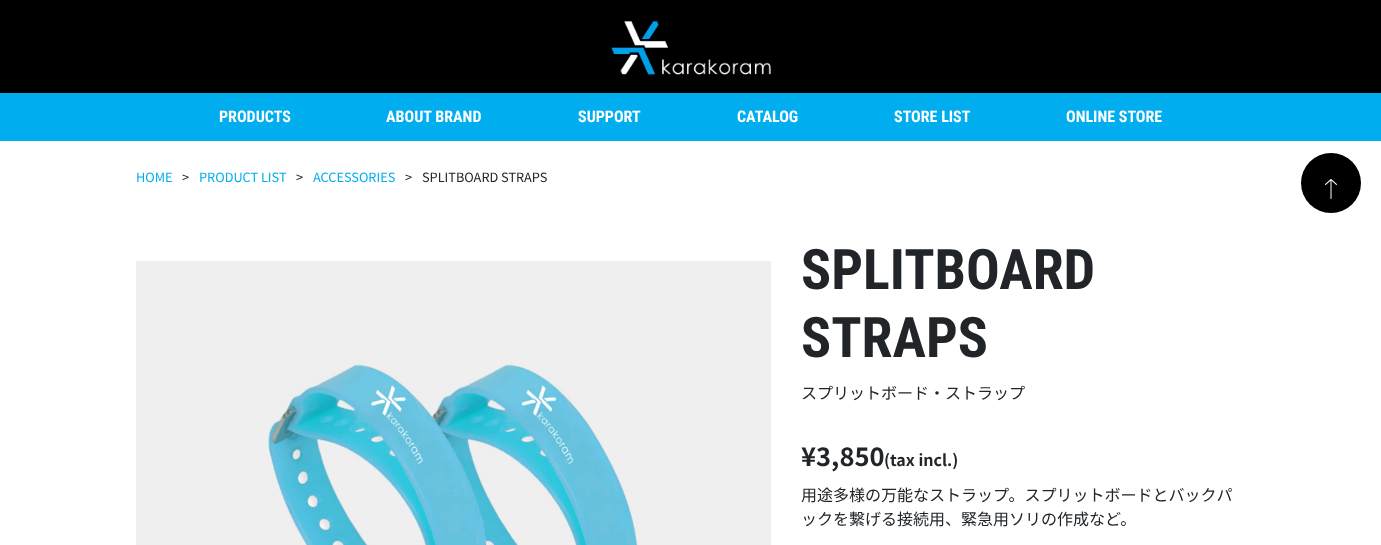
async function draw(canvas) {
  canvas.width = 1381
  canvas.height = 545
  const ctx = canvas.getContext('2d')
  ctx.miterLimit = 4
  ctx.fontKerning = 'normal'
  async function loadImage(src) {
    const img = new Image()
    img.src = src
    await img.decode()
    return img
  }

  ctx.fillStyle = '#fff'
  ctx.fillRect(0, 0, 1381, 545)
  ctx.fillStyle = '#000'
  ctx.fillRect(0, 0, 1381, 93)
  ctx.drawImage(await loadImage('image0.png'), 611, 21, 160, 54)
  ctx.fillStyle = '#00aeef'
  ctx.fillRect(0, 93, 1381, 48)
  ctx.font = 'bold 16px Roboto Condensed'
  ctx.fillStyle = '#fff'
  ctx.fillText('PRODUCTS', 219, 122)
  ctx.fillText('ABOUT BRAND', 386, 122)
  ctx.fillText('SUPPORT', 578, 122)
  ctx.fillText('CATALOG', 737, 122)
  ctx.fillText('STORE LIST', 894, 122)
  ctx.fillText('ONLINE STORE', 1066, 122)
  ctx.font = '12.75px Noto Sans JP'
  ctx.fillStyle = '#00aeef'
  ctx.fillText('HOME', 136, 182)
  ctx.fillStyle = '#212529'
  ctx.fillText('>', 182, 182)
  ctx.fillStyle = '#00aeef'
  ctx.fillText('PRODUCT LIST', 199, 182)
  ctx.fillStyle = '#212529'
  ctx.fillText('>', 296, 182)
  ctx.fillStyle = '#00aeef'
  ctx.fillText('ACCESSORIES', 313, 182)
  ctx.fillStyle = '#212529'
  ctx.fillText('>', 405, 182)
  ctx.fillText('SPLITBOARD STRAPS', 422, 182)
  ctx.fillStyle = '#000'
  ctx.beginPath()
  ctx.arc(1331, 183, 30, 0, 2 * Math.PI)
  ctx.fill()
  ctx.drawImage(await loadImage('image1.png'), 1325, 179, 12, 20)
  ctx.drawImage(await loadImage('image2.png'), 136, 261, 635, 284)
  ctx.font = 'bold 56px Roboto Condensed'
  ctx.fillStyle = '#212529'
  ctx.fillText('SPLITBOARD', 801, 289)
  ctx.fillText('STRAPS', 801, 357)
  ctx.font = '16px Noto Sans JP'
  ctx.fillText('スプリットボード・ストラップ', 801, 399)
  ctx.font = 'bold 25.5px Noto Sans JP'
  ctx.fillText('¥3,850', 801, 466)
  ctx.font = 'bold 16px Noto Sans JP'
  ctx.fillText('(tax incl.)', 884, 466)
  ctx.font = '16px Noto Sans JP'
  ctx.fillText('用途多様の万能なストラップ。スプリットボードとバックパ', 801, 501)
  ctx.fillText('ックを繋げる接続用、緊急用ソリの作成など。', 801, 525)
}

draw(document.querySelector('canvas'))
